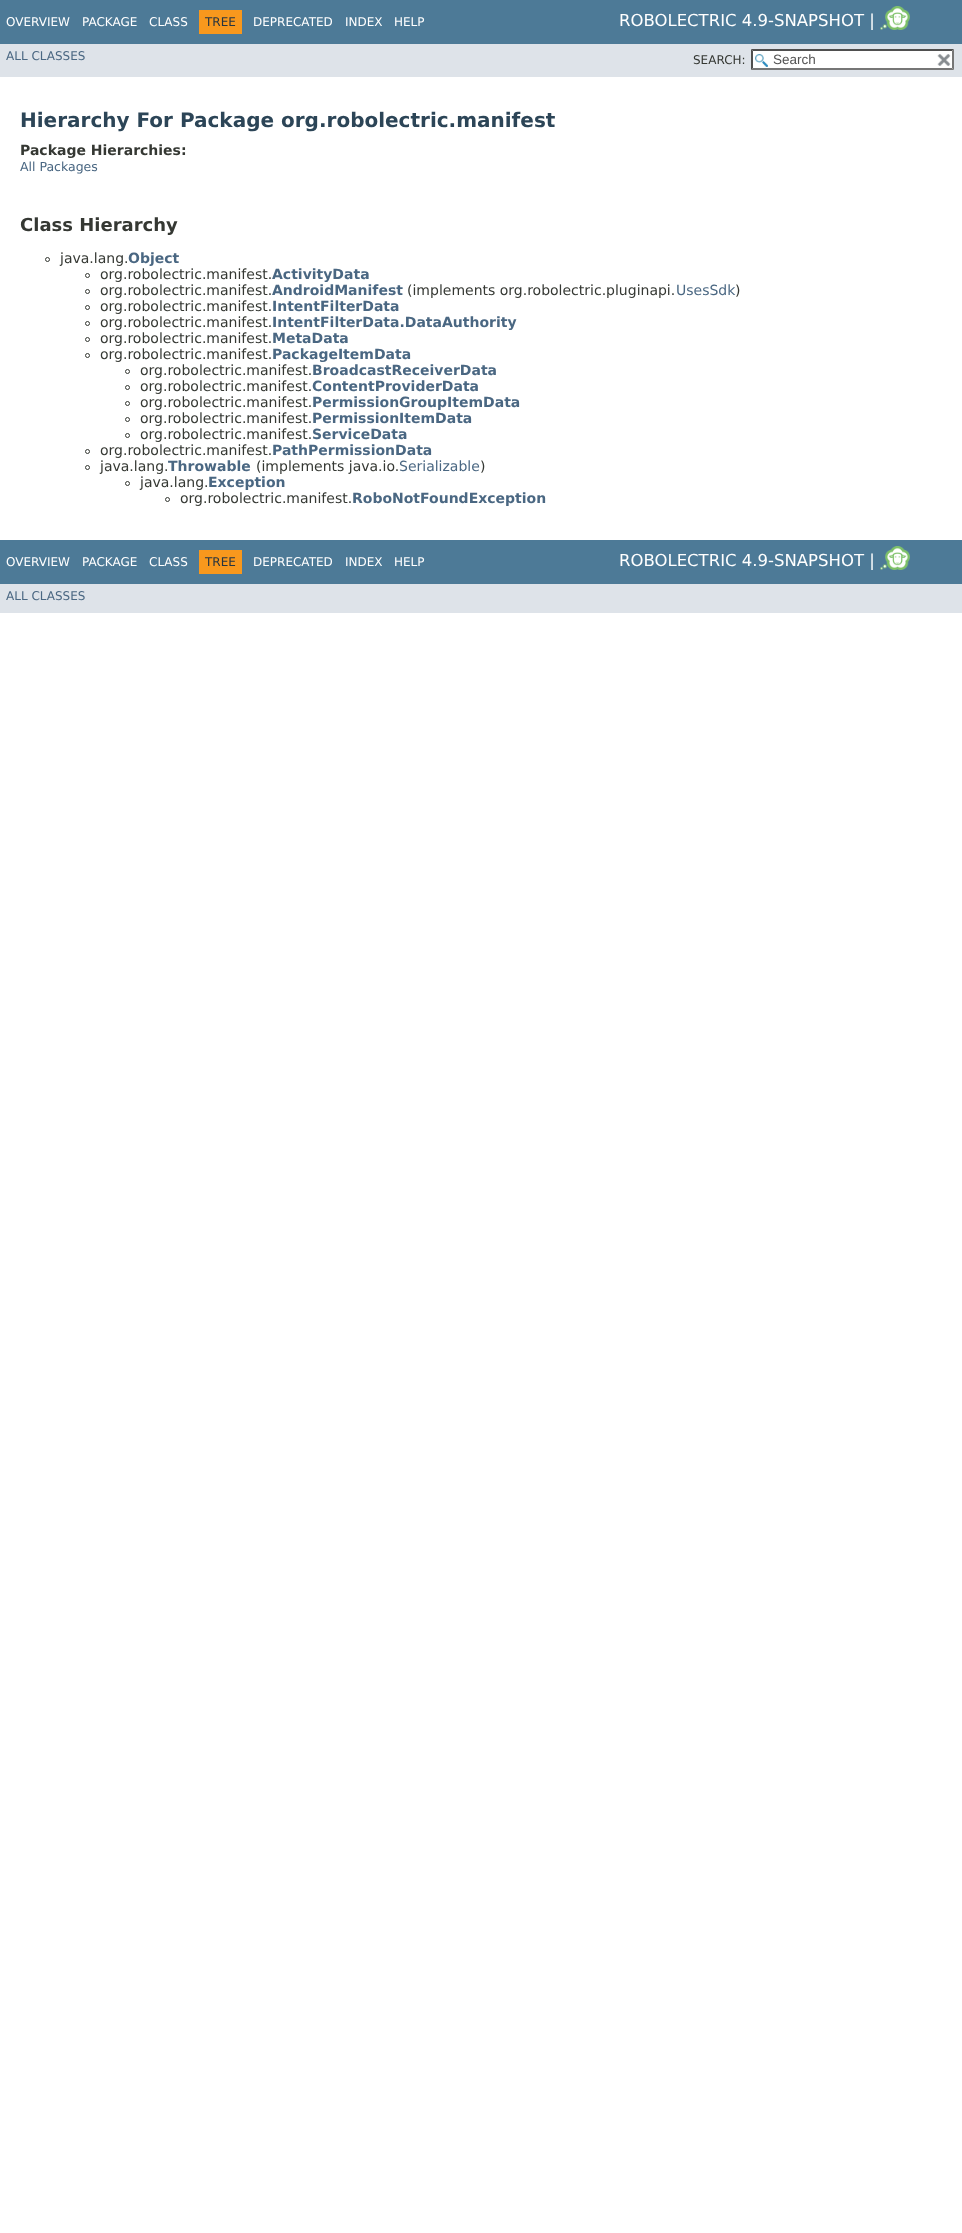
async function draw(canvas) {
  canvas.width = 962
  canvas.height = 2233
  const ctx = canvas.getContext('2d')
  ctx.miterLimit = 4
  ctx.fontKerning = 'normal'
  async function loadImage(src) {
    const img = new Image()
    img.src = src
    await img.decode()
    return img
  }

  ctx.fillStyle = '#fff'
  ctx.fillRect(0, 0, 962, 2233)
  ctx.fillStyle = '#4d7a97'
  ctx.fillRect(0, 0, 962, 44)
  ctx.font = '12px DejaVu Sans'
  ctx.fillStyle = '#fff'
  ctx.fillText('OVERVIEW', 6, 26)
  ctx.fillText('PACKAGE', 82, 26)
  ctx.fillText('CLASS', 149, 26)
  ctx.fillStyle = '#f8981d'
  ctx.fillRect(199, 10, 43, 24)
  ctx.fillStyle = '#253441'
  ctx.fillText('TREE', 205, 26)
  ctx.fillStyle = '#fff'
  ctx.fillText('DEPRECATED', 253, 26)
  ctx.fillText('INDEX', 345, 26)
  ctx.fillText('HELP', 394, 26)
  ctx.font = '16.5px DejaVu Sans'
  ctx.fillText('ROBOLECTRIC 4.9-SNAPSHOT |', 619, 26)
  ctx.drawImage(await loadImage('image0.png'), 880, 6, 30, 24)
  ctx.fillStyle = '#dee3e9'
  ctx.fillRect(0, 44, 962, 33)
  ctx.font = '12px DejaVu Sans'
  ctx.fillStyle = '#4a6782'
  ctx.fillText('ALL CLASSES', 6, 60)
  ctx.fillStyle = '#353833'
  ctx.fillText('SEARCH:', 693, 64)
  ctx.fillStyle = '#fff'
  ctx.fillRect(751, 49, 203, 21)
  ctx.drawImage(await loadImage('image1.png'), 755, 54, 13, 13)
  ctx.fillStyle = '#4f4f4f'
  ctx.beginPath()
  ctx.moveTo(751, 49)
  ctx.lineTo(954, 49)
  ctx.lineTo(952, 51)
  ctx.lineTo(753, 51)
  ctx.closePath()
  ctx.fill()
  ctx.fillStyle = '#767676'
  ctx.beginPath()
  ctx.moveTo(954, 49)
  ctx.lineTo(954, 70)
  ctx.lineTo(952, 68)
  ctx.lineTo(952, 51)
  ctx.closePath()
  ctx.fill()
  ctx.beginPath()
  ctx.moveTo(954, 70)
  ctx.lineTo(751, 70)
  ctx.lineTo(753, 68)
  ctx.lineTo(952, 68)
  ctx.closePath()
  ctx.fill()
  ctx.fillStyle = '#4f4f4f'
  ctx.beginPath()
  ctx.moveTo(751, 70)
  ctx.lineTo(751, 49)
  ctx.lineTo(753, 51)
  ctx.lineTo(753, 68)
  ctx.closePath()
  ctx.fill()
  ctx.font = '13.5px Liberation Sans'
  ctx.fillStyle = '#545454'
  ctx.fillText('Search', 773, 64)
  ctx.drawImage(await loadImage('image2.png'), 937, 54, 14, 12)
  ctx.font = 'bold 20px DejaVu Sans'
  ctx.fillStyle = '#2c4557'
  ctx.fillText('Hierarchy For Package org.robolectric.manifest', 20, 127)
  ctx.font = 'bold 14px DejaVu Sans'
  ctx.fillStyle = '#353833'
  ctx.fillText('Package Hierarchies:', 20, 155)
  ctx.font = '12.5px DejaVu Sans'
  ctx.fillStyle = '#4a6782'
  ctx.fillText('All Packages', 20, 171)
  ctx.font = 'bold 18px DejaVu Sans'
  ctx.fillStyle = '#353833'
  ctx.fillText('Class Hierarchy', 20, 231)
  ctx.beginPath()
  ctx.arc(47.5, 259.5, 2, 0, 2 * Math.PI)
  ctx.strokeStyle = '#353833'
  ctx.stroke()
  ctx.font = '14px DejaVu Sans'
  ctx.fillText('java.lang.', 60, 263)
  ctx.font = 'bold 14px DejaVu Sans'
  ctx.fillStyle = '#4a6782'
  ctx.fillText('Object', 128, 263)
  ctx.beginPath()
  ctx.arc(87.5, 275.5, 2, 0, 2 * Math.PI)
  ctx.stroke()
  ctx.font = '14px DejaVu Sans'
  ctx.fillStyle = '#353833'
  ctx.fillText('org.robolectric.manifest.', 100, 279)
  ctx.font = 'bold 14px DejaVu Sans'
  ctx.fillStyle = '#4a6782'
  ctx.fillText('ActivityData', 272, 279)
  ctx.beginPath()
  ctx.arc(87.5, 291.5, 2, 0, 2 * Math.PI)
  ctx.stroke()
  ctx.font = '14px DejaVu Sans'
  ctx.fillStyle = '#353833'
  ctx.fillText('org.robolectric.manifest.', 100, 295)
  ctx.font = 'bold 14px DejaVu Sans'
  ctx.fillStyle = '#4a6782'
  ctx.fillText('AndroidManifest', 272, 295)
  ctx.font = '14px DejaVu Sans'
  ctx.fillStyle = '#353833'
  ctx.fillText('(implements org.robolectric.pluginapi.', 407, 295)
  ctx.fillStyle = '#4a6782'
  ctx.fillText('UsesSdk', 676, 295)
  ctx.fillStyle = '#353833'
  ctx.fillText(')', 735, 295)
  ctx.beginPath()
  ctx.arc(87.5, 307.5, 2, 0, 2 * Math.PI)
  ctx.stroke()
  ctx.fillText('org.robolectric.manifest.', 100, 311)
  ctx.font = 'bold 14px DejaVu Sans'
  ctx.fillStyle = '#4a6782'
  ctx.fillText('IntentFilterData', 272, 311)
  ctx.beginPath()
  ctx.arc(87.5, 323.5, 2, 0, 2 * Math.PI)
  ctx.stroke()
  ctx.font = '14px DejaVu Sans'
  ctx.fillStyle = '#353833'
  ctx.fillText('org.robolectric.manifest.', 100, 327)
  ctx.font = 'bold 14px DejaVu Sans'
  ctx.fillStyle = '#4a6782'
  ctx.fillText('IntentFilterData.DataAuthority', 272, 327)
  ctx.beginPath()
  ctx.arc(87.5, 339.5, 2, 0, 2 * Math.PI)
  ctx.stroke()
  ctx.font = '14px DejaVu Sans'
  ctx.fillStyle = '#353833'
  ctx.fillText('org.robolectric.manifest.', 100, 343)
  ctx.font = 'bold 14px DejaVu Sans'
  ctx.fillStyle = '#4a6782'
  ctx.fillText('MetaData', 272, 343)
  ctx.beginPath()
  ctx.arc(87.5, 355.5, 2, 0, 2 * Math.PI)
  ctx.stroke()
  ctx.font = '14px DejaVu Sans'
  ctx.fillStyle = '#353833'
  ctx.fillText('org.robolectric.manifest.', 100, 359)
  ctx.font = 'bold 14px DejaVu Sans'
  ctx.fillStyle = '#4a6782'
  ctx.fillText('PackageItemData', 272, 359)
  ctx.beginPath()
  ctx.arc(127.5, 371.5, 2, 0, 2 * Math.PI)
  ctx.stroke()
  ctx.font = '14px DejaVu Sans'
  ctx.fillStyle = '#353833'
  ctx.fillText('org.robolectric.manifest.', 140, 375)
  ctx.font = 'bold 14px DejaVu Sans'
  ctx.fillStyle = '#4a6782'
  ctx.fillText('BroadcastReceiverData', 312, 375)
  ctx.beginPath()
  ctx.arc(127.5, 387.5, 2, 0, 2 * Math.PI)
  ctx.stroke()
  ctx.font = '14px DejaVu Sans'
  ctx.fillStyle = '#353833'
  ctx.fillText('org.robolectric.manifest.', 140, 391)
  ctx.font = 'bold 14px DejaVu Sans'
  ctx.fillStyle = '#4a6782'
  ctx.fillText('ContentProviderData', 312, 391)
  ctx.beginPath()
  ctx.arc(127.5, 403.5, 2, 0, 2 * Math.PI)
  ctx.stroke()
  ctx.font = '14px DejaVu Sans'
  ctx.fillStyle = '#353833'
  ctx.fillText('org.robolectric.manifest.', 140, 407)
  ctx.font = 'bold 14px DejaVu Sans'
  ctx.fillStyle = '#4a6782'
  ctx.fillText('PermissionGroupItemData', 312, 407)
  ctx.beginPath()
  ctx.arc(127.5, 419.5, 2, 0, 2 * Math.PI)
  ctx.stroke()
  ctx.font = '14px DejaVu Sans'
  ctx.fillStyle = '#353833'
  ctx.fillText('org.robolectric.manifest.', 140, 423)
  ctx.font = 'bold 14px DejaVu Sans'
  ctx.fillStyle = '#4a6782'
  ctx.fillText('PermissionItemData', 312, 423)
  ctx.beginPath()
  ctx.arc(127.5, 435.5, 2, 0, 2 * Math.PI)
  ctx.stroke()
  ctx.font = '14px DejaVu Sans'
  ctx.fillStyle = '#353833'
  ctx.fillText('org.robolectric.manifest.', 140, 439)
  ctx.font = 'bold 14px DejaVu Sans'
  ctx.fillStyle = '#4a6782'
  ctx.fillText('ServiceData', 312, 439)
  ctx.beginPath()
  ctx.arc(87.5, 451.5, 2, 0, 2 * Math.PI)
  ctx.stroke()
  ctx.font = '14px DejaVu Sans'
  ctx.fillStyle = '#353833'
  ctx.fillText('org.robolectric.manifest.', 100, 455)
  ctx.font = 'bold 14px DejaVu Sans'
  ctx.fillStyle = '#4a6782'
  ctx.fillText('PathPermissionData', 272, 455)
  ctx.beginPath()
  ctx.arc(87.5, 467.5, 2, 0, 2 * Math.PI)
  ctx.stroke()
  ctx.font = '14px DejaVu Sans'
  ctx.fillStyle = '#353833'
  ctx.fillText('java.lang.', 100, 471)
  ctx.font = 'bold 14px DejaVu Sans'
  ctx.fillStyle = '#4a6782'
  ctx.fillText('Throwable', 168, 471)
  ctx.font = '14px DejaVu Sans'
  ctx.fillStyle = '#353833'
  ctx.fillText('(implements java.io.', 256, 471)
  ctx.fillStyle = '#4a6782'
  ctx.fillText('Serializable', 399, 471)
  ctx.fillStyle = '#353833'
  ctx.fillText(')', 480, 471)
  ctx.beginPath()
  ctx.arc(127.5, 483.5, 2, 0, 2 * Math.PI)
  ctx.stroke()
  ctx.fillText('java.lang.', 140, 487)
  ctx.font = 'bold 14px DejaVu Sans'
  ctx.fillStyle = '#4a6782'
  ctx.fillText('Exception', 208, 487)
  ctx.beginPath()
  ctx.arc(167.5, 499.5, 2, 0, 2 * Math.PI)
  ctx.stroke()
  ctx.font = '14px DejaVu Sans'
  ctx.fillStyle = '#353833'
  ctx.fillText('org.robolectric.manifest.', 180, 503)
  ctx.font = 'bold 14px DejaVu Sans'
  ctx.fillStyle = '#4a6782'
  ctx.fillText('RoboNotFoundException', 352, 503)
  ctx.fillStyle = '#4d7a97'
  ctx.fillRect(0, 540, 962, 44)
  ctx.font = '12px DejaVu Sans'
  ctx.fillStyle = '#fff'
  ctx.fillText('OVERVIEW', 6, 566)
  ctx.fillText('PACKAGE', 82, 566)
  ctx.fillText('CLASS', 149, 566)
  ctx.fillStyle = '#f8981d'
  ctx.fillRect(199, 550, 43, 24)
  ctx.fillStyle = '#253441'
  ctx.fillText('TREE', 205, 566)
  ctx.fillStyle = '#fff'
  ctx.fillText('DEPRECATED', 253, 566)
  ctx.fillText('INDEX', 345, 566)
  ctx.fillText('HELP', 394, 566)
  ctx.font = '16.5px DejaVu Sans'
  ctx.fillText('ROBOLECTRIC 4.9-SNAPSHOT |', 619, 566)
  ctx.drawImage(await loadImage('image0.png'), 880, 546, 30, 24)
  ctx.fillStyle = '#dee3e9'
  ctx.fillRect(0, 584, 962, 29)
  ctx.font = '12px DejaVu Sans'
  ctx.fillStyle = '#4a6782'
  ctx.fillText('ALL CLASSES', 6, 600)
}

draw(document.querySelector('canvas'))
